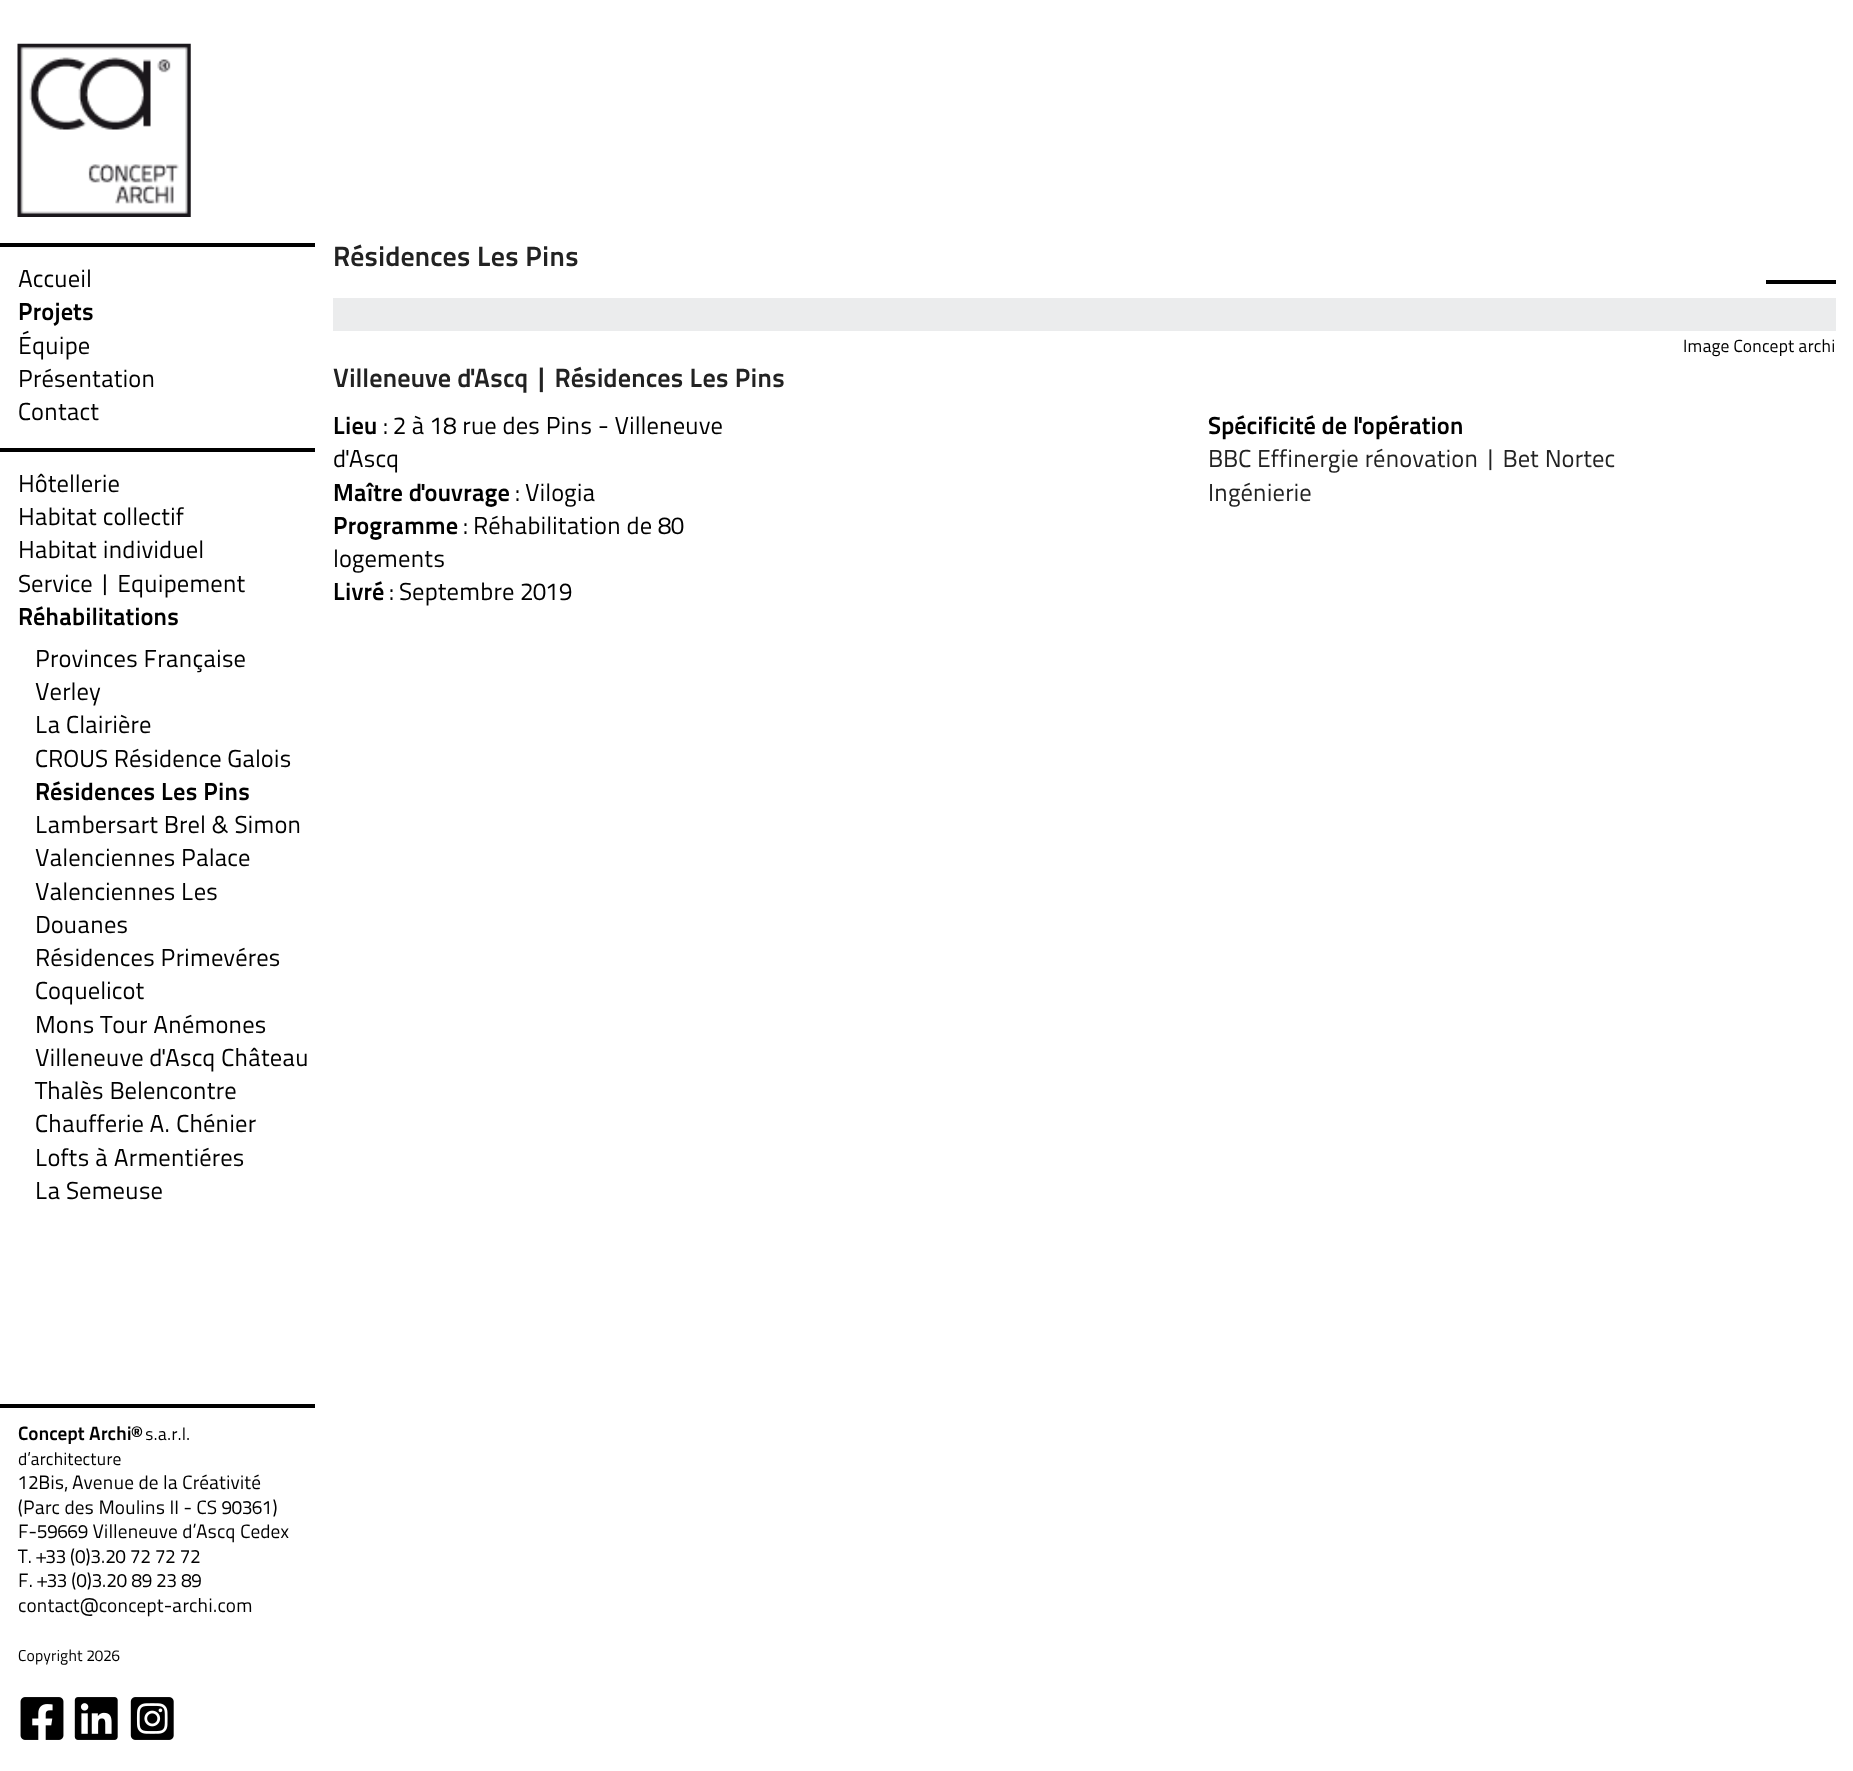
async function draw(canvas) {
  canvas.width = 1853
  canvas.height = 1771
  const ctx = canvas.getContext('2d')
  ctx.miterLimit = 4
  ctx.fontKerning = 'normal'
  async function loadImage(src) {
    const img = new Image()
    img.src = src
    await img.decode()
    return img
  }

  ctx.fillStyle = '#fff'
  ctx.fillRect(0, 0, 1853, 1771)
  ctx.fillStyle = '#000'
  ctx.fillRect(0, 243, 315, 4)
  ctx.drawImage(await loadImage('image0.png'), 17, 43, 174, 174)
  ctx.fillRect(0, 448, 315, 4)
  ctx.font = '24.5px "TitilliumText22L"'
  ctx.fillText('Accueil', 18, 287)
  ctx.font = 'bold 24.5px "TitilliumText22L"'
  ctx.fillText('Projets', 18, 320)
  ctx.font = '24.5px "TitilliumText22L"'
  ctx.fillText('Équipe', 18, 354)
  ctx.fillText('Présentation', 18, 387)
  ctx.fillText('Contact', 18, 420)
  ctx.fillText('Hôtellerie', 18, 492)
  ctx.fillText('Habitat collectif', 18, 525)
  ctx.fillText('Habitat individuel', 18, 558)
  ctx.fillText('Service | Equipement', 18, 592)
  ctx.font = 'bold 24.5px "TitilliumText22L"'
  ctx.fillText('Réhabilitations', 18, 625)
  ctx.font = '24.5px "TitilliumText22L"'
  ctx.fillText('Provinces Française', 35, 667)
  ctx.fillText('Verley', 35, 700)
  ctx.fillText('La Clairière', 35, 733)
  ctx.fillText('CROUS Résidence Galois', 35, 767)
  ctx.font = 'bold 24.5px "TitilliumText22L"'
  ctx.fillText('Résidences Les Pins', 35, 800)
  ctx.font = '24.5px "TitilliumText22L"'
  ctx.fillText('Lambersart Brel & Simon', 35, 833)
  ctx.fillText('Valenciennes Palace', 35, 866)
  ctx.fillText('Valenciennes Les', 35, 900)
  ctx.fillText('Douanes', 35, 933)
  ctx.fillText('Résidences Primevéres', 35, 966)
  ctx.fillText('Coquelicot', 35, 999)
  ctx.fillText('Mons Tour Anémones', 35, 1033)
  ctx.fillText('Villeneuve d\'Ascq Château', 35, 1066)
  ctx.fillText('Thalès Belencontre', 35, 1099)
  ctx.fillText('Chaufferie A. Chénier', 35, 1132)
  ctx.fillText('Lofts à Armentiéres', 35, 1166)
  ctx.fillText('La Semeuse', 35, 1199)
  ctx.fillRect(0, 1404, 315, 4)
  ctx.font = 'bold 19.25px "TitilliumText22L"'
  ctx.fillText('Concept Archi®', 18, 1440)
  ctx.font = '17.5px "TitilliumText22L"'
  ctx.fillText('s.a.r.l.', 145, 1440)
  ctx.fillText('d’architecture', 18, 1465)
  ctx.font = '19.25px "TitilliumText22L"'
  ctx.fillText('12Bis, Avenue de la Créativité', 18, 1489)
  ctx.fillText('(Parc des Moulins II - CS 90361)', 18, 1514)
  ctx.fillText('F-59669 Villeneuve d’Ascq Cedex', 18, 1538)
  ctx.fillText('T. +33 (0)3.20 72 72 72', 18, 1563)
  ctx.fillText('F. +33 (0)3.20 89 23 89', 18, 1587)
  ctx.fillText('contact@concept-archi.com', 18, 1612)
  ctx.font = '15.75px "TitilliumText22L"'
  ctx.fillText('Copyright 2026', 18, 1661)
  ctx.drawImage(await loadImage('image1.png'), 20, 1697, 44, 43)
  ctx.drawImage(await loadImage('image2.png'), 74, 1697, 44, 43)
  ctx.drawImage(await loadImage('image3.png'), 130, 1697, 44, 43)
  ctx.font = 'bold 28px "TitilliumText22L"'
  ctx.fillStyle = '#222'
  ctx.fillText('Résidences Les Pins', 333, 266)
  ctx.fillStyle = '#000'
  ctx.fillRect(1766, 280, 70, 4)
  ctx.fillStyle = '#ebeced'
  ctx.fillRect(333, 298, 1503, 33)
  ctx.font = '17.5px "TitilliumText22L"'
  ctx.fillStyle = '#000'
  ctx.fillText('Image Concept archi', 1683, 352)
  ctx.font = 'bold 26.25px "TitilliumText22L"'
  ctx.fillStyle = '#222'
  ctx.fillText('Villeneuve d\'Ascq | Résidences Les Pins', 333, 387)
  ctx.font = 'bold 24.5px "TitilliumText22L"'
  ctx.fillStyle = '#000'
  ctx.fillText('Lieu', 333, 434)
  ctx.font = '24.5px "TitilliumText22L"'
  ctx.fillText(': 2 à 18 rue des Pins - Villeneuve', 383, 434)
  ctx.fillText('d\'Ascq', 333, 467)
  ctx.font = 'bold 24.5px "TitilliumText22L"'
  ctx.fillText('Maître d\'ouvrage', 333, 501)
  ctx.font = '24.5px "TitilliumText22L"'
  ctx.fillText(': Vilogia', 515, 501)
  ctx.font = 'bold 24.5px "TitilliumText22L"'
  ctx.fillText('Programme', 333, 534)
  ctx.font = '24.5px "TitilliumText22L"'
  ctx.fillText(': Réhabilitation de 80', 463, 534)
  ctx.fillText('logements', 333, 567)
  ctx.font = 'bold 24.5px "TitilliumText22L"'
  ctx.fillText('Livré', 333, 600)
  ctx.font = '24.5px "TitilliumText22L"'
  ctx.fillText(': Septembre 2019', 389, 600)
  ctx.font = 'bold 24.5px "TitilliumText22L"'
  ctx.fillText('Spécificité de l\'opération', 1208, 434)
  ctx.font = '24.5px "TitilliumText22L"'
  ctx.fillStyle = '#222'
  ctx.fillText('BBC Effinergie rénovation | Bet Nortec', 1208, 467)
  ctx.fillText('Ingénierie', 1208, 501)
}

draw(document.querySelector('canvas'))
